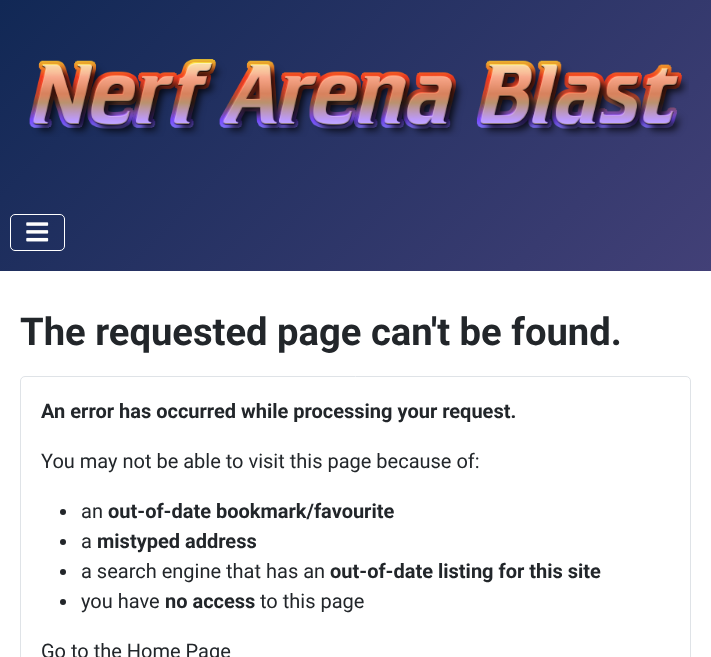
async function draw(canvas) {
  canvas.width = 711
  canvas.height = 657
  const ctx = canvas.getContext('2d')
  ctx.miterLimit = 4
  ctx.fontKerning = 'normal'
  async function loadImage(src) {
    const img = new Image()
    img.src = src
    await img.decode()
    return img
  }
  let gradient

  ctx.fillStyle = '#fff'
  ctx.fillRect(0, 0, 711, 657)
  gradient = ctx.createLinearGradient(110, -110, 601, 381)
  gradient.addColorStop(0, '#112855')
  gradient.addColorStop(1, '#424077')
  ctx.fillStyle = gradient
  ctx.fillRect(0, 0, 711, 271)
  ctx.drawImage(await loadImage('image0.png'), 29, 59, 660, 78)
  ctx.beginPath()
  ctx.roundRect(10.5, 214.5, 54, 36, 4.5)
  ctx.strokeStyle = '#fff'
  ctx.stroke()
  ctx.drawImage(await loadImage('image1.png'), 26, 222, 23, 20)
  ctx.font = 'bold 38.2px Roboto'
  ctx.fillStyle = '#22262a'
  ctx.fillText('The requested page can\'t be found.', 20, 345)
  ctx.beginPath()
  ctx.roundRect(20.5, 376.5, 670, 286, 4.5)
  ctx.strokeStyle = '#dfe3e7'
  ctx.stroke()
  ctx.font = 'bold 20px Roboto'
  ctx.fillText('An error has occurred while processing your request.', 41, 418)
  ctx.font = '20px Roboto'
  ctx.fillText('You may not be able to visit this page because of:', 41, 468)
  ctx.beginPath()
  ctx.arc(63, 512, 3, 0, 2 * Math.PI)
  ctx.fill()
  ctx.fillText('an', 81, 518)
  ctx.font = 'bold 20px Roboto'
  ctx.fillText('out-of-date bookmark/favourite', 108, 518)
  ctx.beginPath()
  ctx.arc(63, 542, 3, 0, 2 * Math.PI)
  ctx.fill()
  ctx.font = '20px Roboto'
  ctx.fillText('a', 81, 548)
  ctx.font = 'bold 20px Roboto'
  ctx.fillText('mistyped address', 97, 548)
  ctx.beginPath()
  ctx.arc(63, 572, 3, 0, 2 * Math.PI)
  ctx.fill()
  ctx.font = '20px Roboto'
  ctx.fillText('a search engine that has an', 81, 578)
  ctx.font = 'bold 20px Roboto'
  ctx.fillText('out-of-date listing for this site', 330, 578)
  ctx.beginPath()
  ctx.arc(63, 602, 3, 0, 2 * Math.PI)
  ctx.fill()
  ctx.font = '20px Roboto'
  ctx.fillText('you have', 81, 608)
  ctx.font = 'bold 20px Roboto'
  ctx.fillText('no access', 165, 608)
  ctx.font = '20px Roboto'
  ctx.fillText('to this page', 260, 608)
  ctx.fillText('Go to the Home Page', 41, 658)
}

draw(document.querySelector('canvas'))
